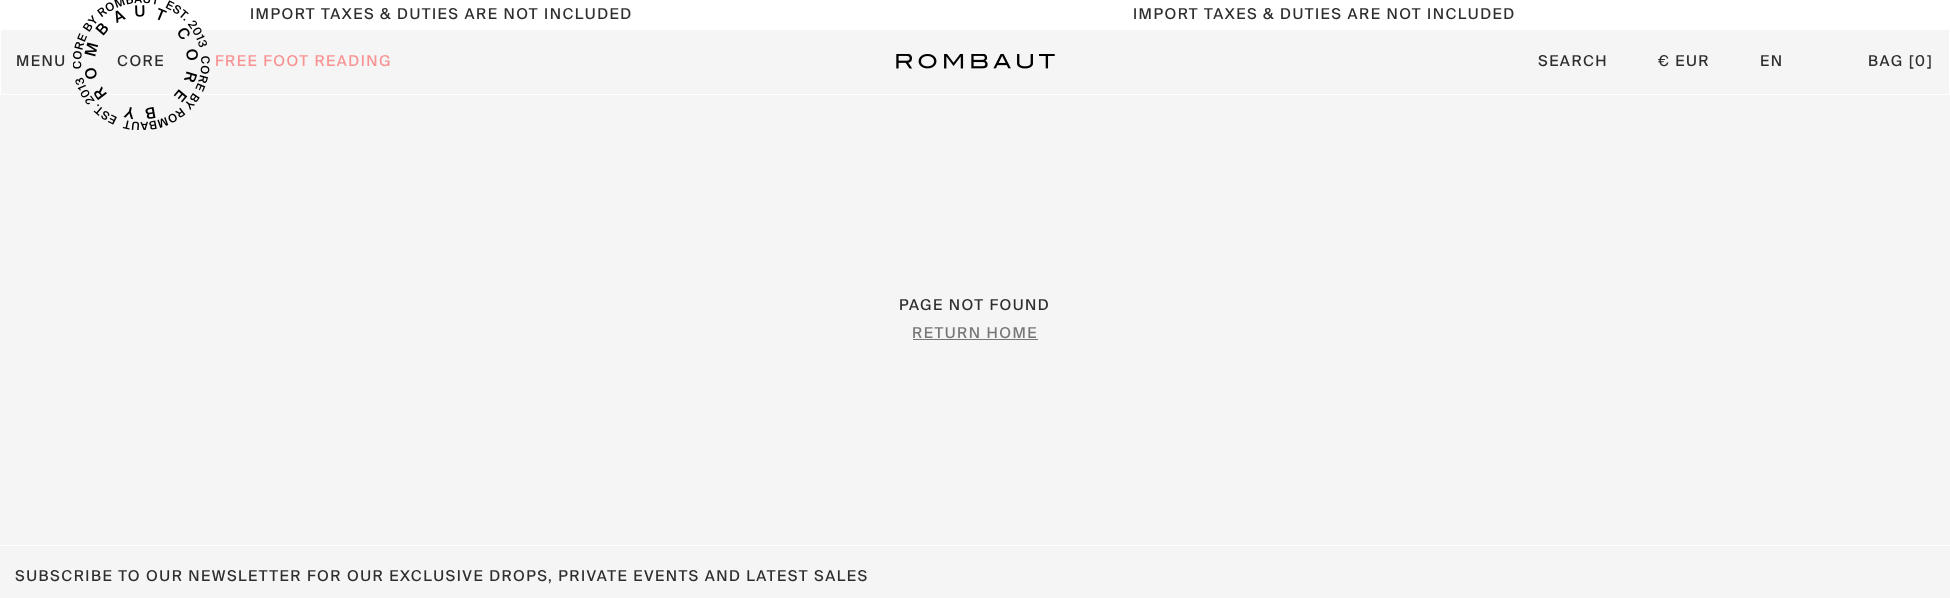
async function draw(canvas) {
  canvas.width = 1950
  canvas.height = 598
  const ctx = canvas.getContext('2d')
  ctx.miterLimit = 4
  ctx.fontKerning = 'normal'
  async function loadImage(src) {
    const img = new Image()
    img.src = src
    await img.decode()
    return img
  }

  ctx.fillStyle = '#f5f5f5'
  ctx.fillRect(0, 0, 1950, 598)
  ctx.fillStyle = '#fff'
  ctx.fillRect(0, 0, 1950, 30)
  ctx.letterSpacing = '1.5px'
  ctx.font = '15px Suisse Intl'
  ctx.fillStyle = '#2e2e2e'
  ctx.fillText('IMPORT TAXES & DUTIES ARE NOT INCLUDED', 250, 19)
  ctx.fillText('IMPORT TAXES & DUTIES ARE NOT INCLUDED', 1133, 19)
  ctx.fillStyle = '#fff'
  ctx.fillRect(1949, 30, 1, 65)
  ctx.fillRect(0, 94, 1950, 1)
  ctx.fillRect(0, 30, 1, 65)
  ctx.fillStyle = '#2e2e2e'
  ctx.fillText('MENU', 16, 66)
  ctx.fillText('CORE', 117, 66)
  ctx.drawImage(await loadImage('image0.png'), 73, 0, 137, 130)
  ctx.fillStyle = '#f99393'
  ctx.fillText('FREE FOOT READING', 215, 66)
  ctx.drawImage(await loadImage('image1.png'), 896, 54, 159, 15)
  ctx.fillStyle = '#2e2e2e'
  ctx.fillText('SEARCH', 1538, 66)
  ctx.fillText('€ EUR', 1658, 66)
  ctx.fillText('EN', 1760, 66)
  ctx.fillText('BAG [', 1868, 66)
  ctx.fillText('0', 1915, 66)
  ctx.fillText(']', 1927, 66)
  ctx.fillStyle = '#fff'
  ctx.fillRect(0, 545, 1950, 1)
  ctx.fillStyle = '#2e2e2e'
  ctx.fillText('PAGE NOT FOUND', 899, 310)
  ctx.fillStyle = '#777'
  ctx.fillText('RETURN HOME', 912, 338)
  ctx.fillRect(913, 339, 125, 1)
  ctx.fillStyle = '#2e2e2e'
  ctx.fillText('SUBSCRIBE TO OUR NEWSLETTER FOR OUR EXCLUSIVE DROPS, PRIVATE EVENTS AND LATEST SALES', 15, 581)
}

draw(document.querySelector('canvas'))
